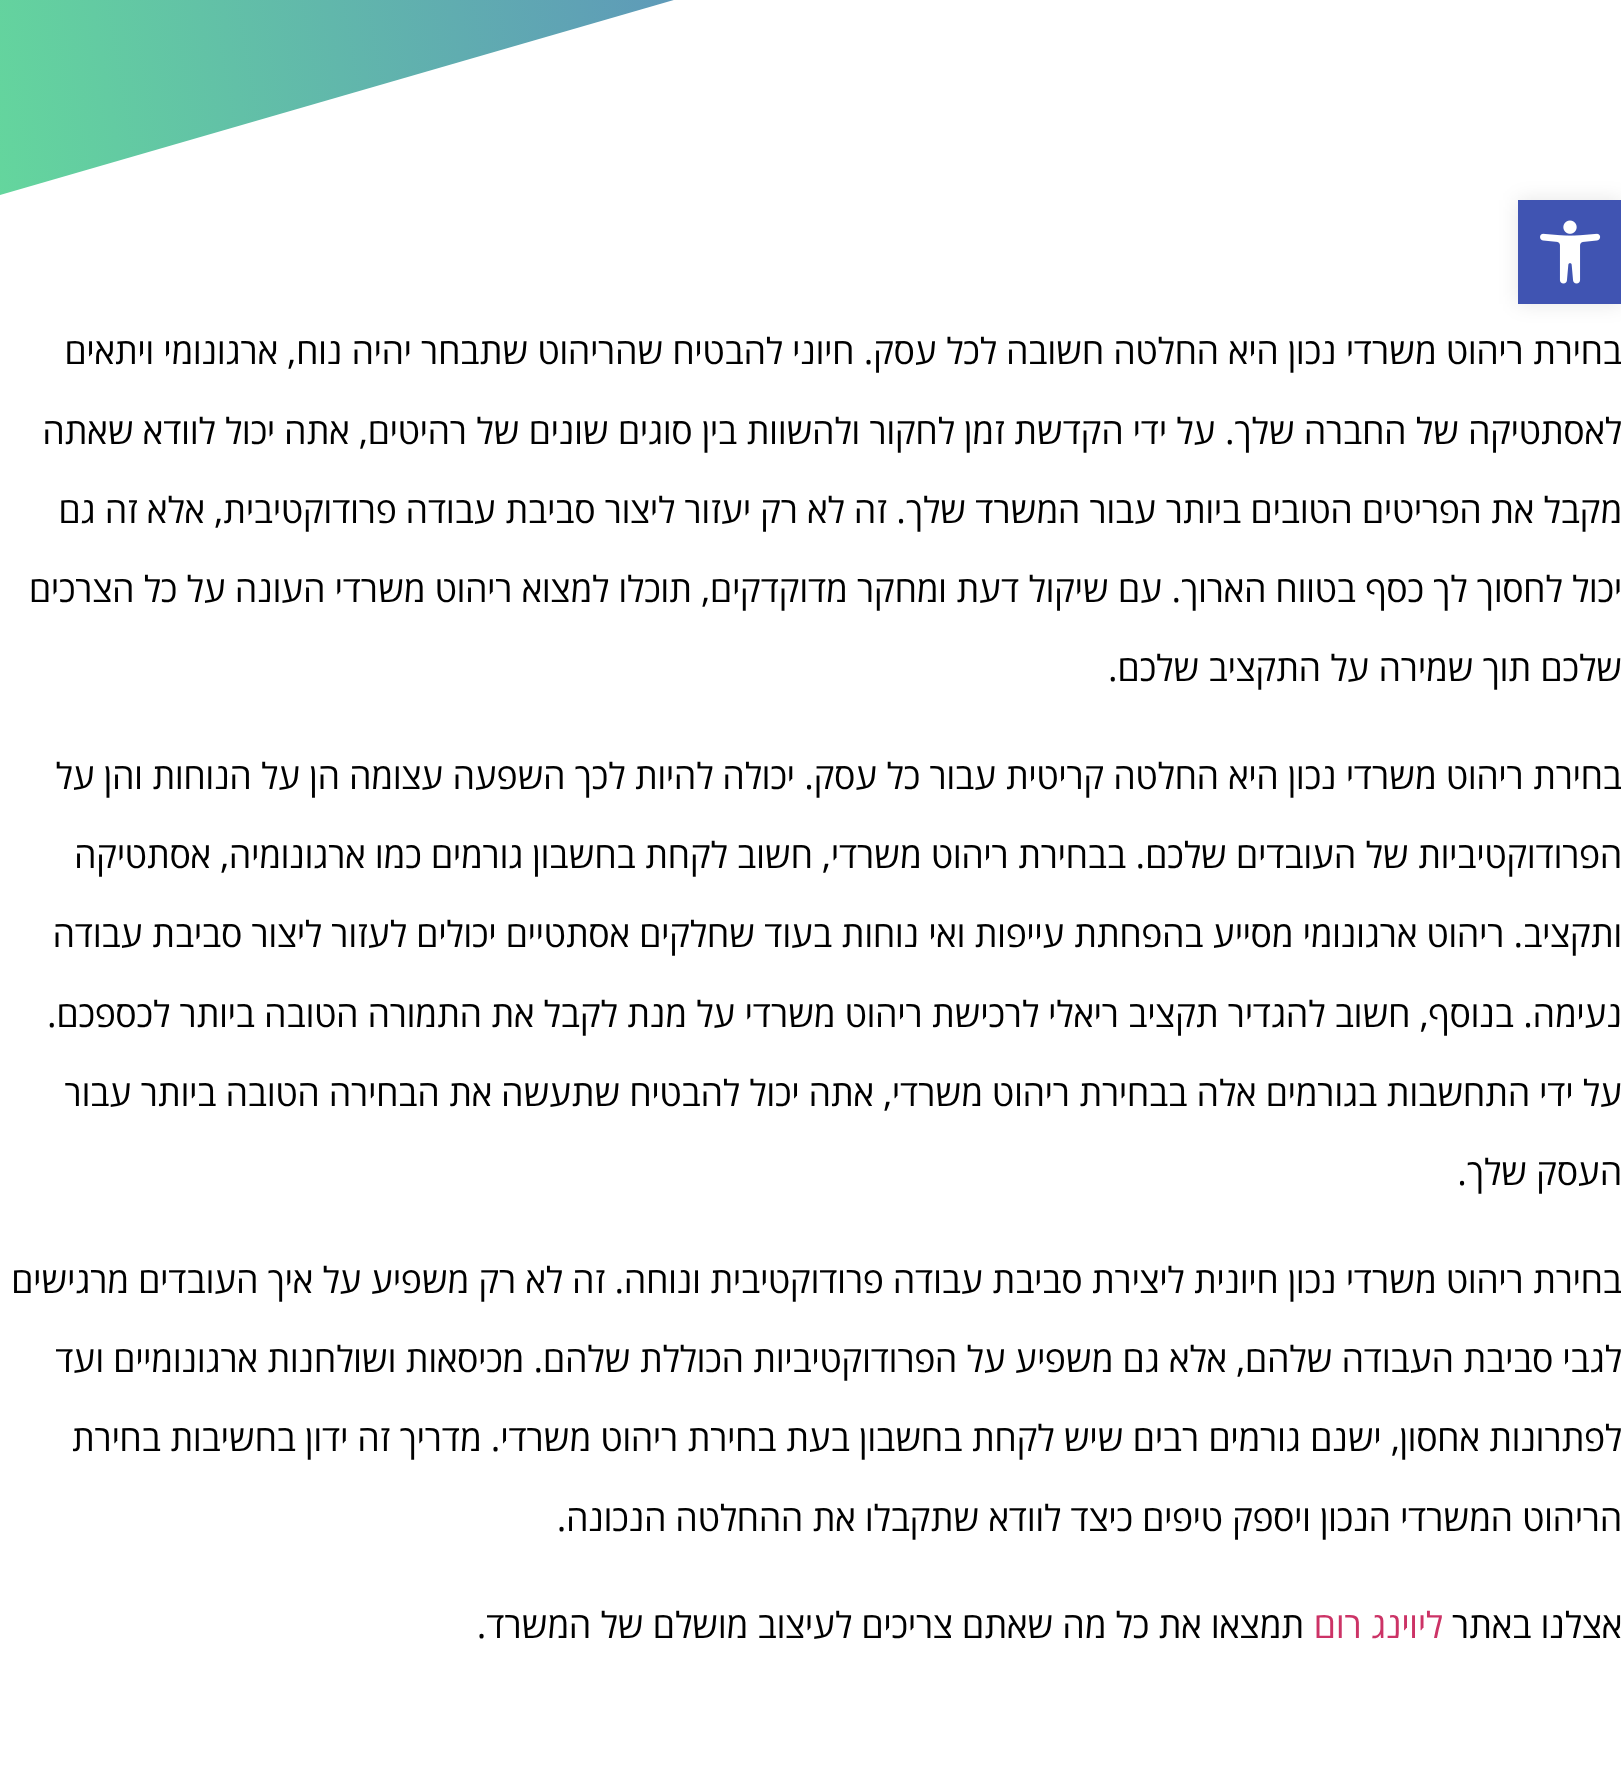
async function draw(canvas) {
  canvas.width = 1621
  canvas.height = 1780
  const ctx = canvas.getContext('2d')
  ctx.miterLimit = 4
  ctx.fontKerning = 'normal'
  async function loadImage(src) {
    const img = new Image()
    img.src = src
    await img.decode()
    return img
  }
  let gradient

  ctx.fillStyle = '#fff'
  ctx.fillRect(0, 0, 1621, 1780)
  gradient = ctx.createLinearGradient(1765, -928, -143, -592)
  gradient.addColorStop(0, '#5430e9')
  gradient.addColorStop(1, '#64d69d')
  ctx.fillStyle = gradient
  ctx.fillRect(0, 0, 674, 195)
  ctx.save()
  ctx.beginPath()
  ctx.rect(0, 0, 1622, 224)
  ctx.clip()
  ctx.fillStyle = '#fff'
  ctx.beginPath()
  ctx.moveTo(0, 195)
  ctx.lineTo(0, 225)
  ctx.lineTo(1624, 225)
  ctx.lineTo(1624, -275)
  ctx.closePath()
  ctx.fill()
  ctx.restore()
  ctx.fillStyle = '#0000001a'
  ctx.filter = 'blur(10px)'
  ctx.beginPath()
  ctx.rect(1518, 200, 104, 104)
  ctx.fill()
  ctx.filter = 'none'
  ctx.fillStyle = '#4054b2'
  ctx.fillRect(1518, 200, 103, 104)
  ctx.drawImage(await loadImage('image0.png'), 1540, 220, 61, 64)
  ctx.direction = 'rtl'
  ctx.font = '36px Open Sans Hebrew'
  ctx.fillStyle = '#000'
  ctx.fillText('בחירת ריהוט משרדי נכון היא החלטה חשובה לכל עסק. חיוני להבטיח שהריהוט שתבחר יהיה נוח, ארגונומי ויתאים', 1622, 364)
  ctx.fillText('לאסתטיקה של החברה שלך. על ידי הקדשת זמן לחקור ולהשוות בין סוגים שונים של רהיטים, אתה יכול לוודא שאתה', 1622, 444)
  ctx.fillText('מקבל את הפריטים הטובים ביותר עבור המשרד שלך. זה לא רק יעזור ליצור סביבת עבודה פרודוקטיבית, אלא זה גם', 1622, 523)
  ctx.fillText('יכול לחסוך לך כסף בטווח הארוך. עם שיקול דעת ומחקר מדוקדקים, תוכלו למצוא ריהוט משרדי העונה על כל הצרכים', 1622, 602)
  ctx.fillText('שלכם תוך שמירה על התקציב שלכם.', 1622, 681)
  ctx.fillText('בחירת ריהוט משרדי נכון היא החלטה קריטית עבור כל עסק. יכולה להיות לכך השפעה עצומה הן על הנוחות והן על', 1622, 789)
  ctx.fillText('הפרודוקטיביות של העובדים שלכם. בבחירת ריהוט משרדי, חשוב לקחת בחשבון גורמים כמו ארגונומיה, אסתטיקה', 1622, 868)
  ctx.fillText('ותקציב. ריהוט ארגונומי מסייע בהפחתת עייפות ואי נוחות בעוד שחלקים אסתטיים יכולים לעזור ליצור סביבת עבודה', 1622, 947)
  ctx.fillText('נעימה. בנוסף, חשוב להגדיר תקציב ריאלי לרכישת ריהוט משרדי על מנת לקבל את התמורה הטובה ביותר לכספכם.', 1622, 1027)
  ctx.fillText('על ידי התחשבות בגורמים אלה בבחירת ריהוט משרדי, אתה יכול להבטיח שתעשה את הבחירה הטובה ביותר עבור', 1622, 1106)
  ctx.fillText('העסק שלך.', 1622, 1185)
  ctx.fillText('בחירת ריהוט משרדי נכון חיונית ליצירת סביבת עבודה פרודוקטיבית ונוחה. זה לא רק משפיע על איך העובדים מרגישים', 1622, 1293)
  ctx.fillText('לגבי סביבת העבודה שלהם, אלא גם משפיע על הפרודוקטיביות הכוללת שלהם. מכיסאות ושולחנות ארגונומיים ועד', 1622, 1372)
  ctx.fillText('לפתרונות אחסון, ישנם גורמים רבים שיש לקחת בחשבון בעת בחירת ריהוט משרדי. מדריך זה ידון בחשיבות בחירת', 1622, 1451)
  ctx.fillText('הריהוט המשרדי הנכון ויספק טיפים כיצד לוודא שתקבלו את ההחלטה הנכונה.', 1622, 1531)
  ctx.fillText('אצלנו באתר', 1622, 1638)
  ctx.fillStyle = '#c36'
  ctx.fillText('ליוינג רום', 1443, 1638)
  ctx.fillStyle = '#000'
  ctx.fillText('תמצאו את כל מה שאתם צריכים לעיצוב מושלם של המשרד.', 1304, 1638)
}

draw(document.querySelector('canvas'))
